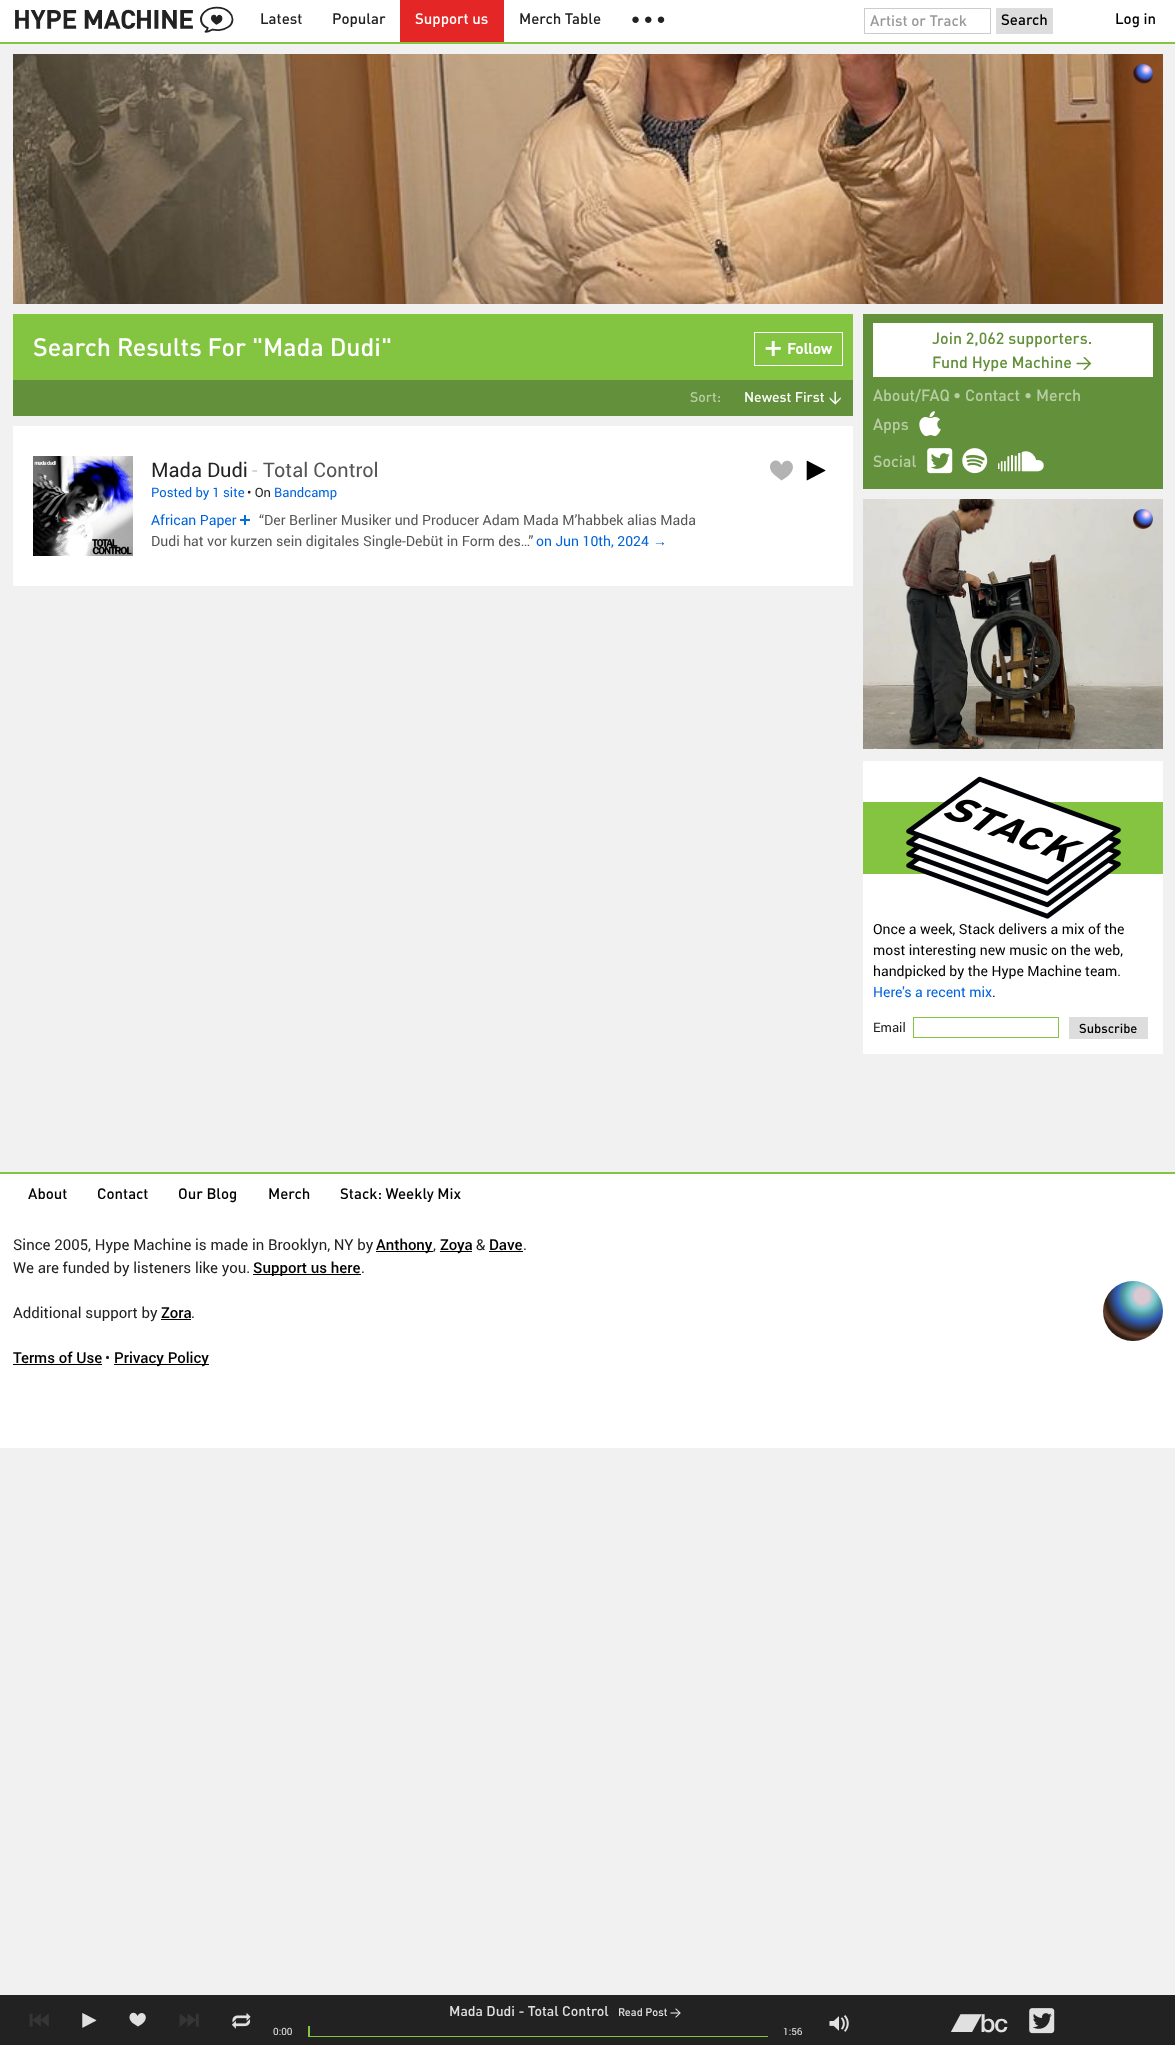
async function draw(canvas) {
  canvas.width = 1175
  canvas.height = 2045
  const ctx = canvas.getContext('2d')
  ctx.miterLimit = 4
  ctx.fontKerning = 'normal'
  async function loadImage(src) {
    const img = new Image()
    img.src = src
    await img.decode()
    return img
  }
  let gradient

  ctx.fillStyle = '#f1f1f1'
  ctx.fillRect(0, 0, 1175, 2045)
  ctx.fillStyle = '#fff'
  ctx.fillRect(0, 0, 1175, 42)
  ctx.fillStyle = '#83c441'
  ctx.fillRect(0, 42, 1175, 2)
  ctx.font = '38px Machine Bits'
  ctx.fillStyle = '#222'
  ctx.fillText('1', 13, 28)
  ctx.font = '500 15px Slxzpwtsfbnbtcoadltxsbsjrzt'
  ctx.fillText('Latest', 260, 24)
  ctx.fillText('Popular', 332, 24)
  ctx.fillStyle = '#e42626'
  ctx.fillRect(400, 0, 104, 42)
  ctx.fillStyle = '#fff'
  ctx.fillText('Support us', 415, 24)
  ctx.fillStyle = '#222'
  ctx.fillText('Merch Table', 519, 24)
  ctx.font = 'bold 15px Liberation Serif'
  ctx.fillText('● ● ●', 631, 24)
  ctx.strokeStyle = '#ccc'
  ctx.strokeRect(864.5, 8.5, 126, 25)
  ctx.font = '500 15px Slxzpwtsfbnbtcoadltxsbsjrzt'
  ctx.fillStyle = '#999'
  ctx.fillText('Artist or Track', 870, 26)
  ctx.fillStyle = '#ddd'
  ctx.fillRect(996, 8, 57, 26)
  ctx.fillStyle = '#000'
  ctx.fillText('Search', 1001, 25)
  ctx.fillText('Log in', 1115, 24)
  ctx.drawImage(await loadImage('image0.png'), 13, 54, 1150, 250)
  ctx.fillStyle = '#83c441'
  ctx.fillRect(13, 314, 840, 66)
  ctx.font = '500 25px Slxzpwtsfbnbtcoadltxsbsjrzt'
  ctx.fillStyle = '#fff'
  ctx.fillText('Search Results For "Mada Dudi"', 33, 356)
  ctx.strokeStyle = '#fff'
  ctx.strokeRect(754.5, 332.5, 88, 33)
  ctx.font = '15px Machine Bits'
  ctx.fillText('+', 765, 354)
  ctx.font = 'bold 15px Slxzpwtsfbnbtcoadltxsbsjrzt'
  ctx.fillText('Follow', 787, 354)
  ctx.fillStyle = '#63903a'
  ctx.fillRect(863, 314, 300, 175)
  ctx.fillStyle = '#fff'
  ctx.fillRect(873, 323, 280, 54)
  ctx.font = '500 16px Slxzpwtsfbnbtcoadltxsbsjrzt'
  ctx.fillStyle = '#63903a'
  ctx.fillText('Join 2,062 supporters.', 932, 344)
  ctx.fillText('Fund Hype Machine →', 932, 368)
  ctx.save()
  ctx.beginPath()
  ctx.rect(873, 389, 280, 16)
  ctx.clip()
  ctx.fillStyle = '#b9cda5'
  ctx.fillText('About/FAQ', 873, 401)
  ctx.restore()
  ctx.fillStyle = '#b9cda5'
  ctx.fillText('•', 953, 401)
  ctx.fillText('Contact', 965, 401)
  ctx.fillText('•', 1024, 401)
  ctx.fillText('Merch', 1036, 401)
  ctx.fillText('Apps', 873, 430)
  ctx.drawImage(await loadImage('image1.png'), 919, 411, 22, 26)
  ctx.fillText('Social', 873, 467)
  ctx.drawImage(await loadImage('image2.png'), 927, 448, 26, 26)
  ctx.drawImage(await loadImage('image3.png'), 962, 448, 26, 26)
  ctx.font = '20px Machine Bits'
  ctx.fillStyle = '#fff'
  ctx.fillText('9', 997, 469)
  ctx.drawImage(await loadImage('image4.png'), 863, 499, 300, 250)
  ctx.fillRect(863, 761, 300, 293)
  ctx.drawImage(await loadImage('image5.png'), 863, 776, 300, 143)
  ctx.font = '14px Roboto'
  ctx.fillStyle = '#000'
  ctx.fillText('Once a week, Stack delivers a mix of the', 873, 934)
  ctx.fillText('most interesting new music on the web,', 873, 955)
  ctx.fillText('handpicked by the Hype Machine team.', 873, 976)
  ctx.fillStyle = '#0063dc'
  ctx.fillText('Here\'s a recent mix', 873, 997)
  ctx.fillStyle = '#000'
  ctx.fillText('.', 992, 997)
  ctx.font = '13px Roboto'
  ctx.fillStyle = '#222'
  ctx.fillText('Email', 873, 1032)
  ctx.strokeStyle = '#83c441'
  ctx.strokeRect(913.5, 1017.5, 145, 20)
  ctx.fillStyle = '#ddd'
  ctx.fillRect(1069, 1017, 79, 22)
  ctx.font = '500 13px Slxzpwtsfbnbtcoadltxsbsjrzt'
  ctx.fillStyle = '#000'
  ctx.fillText('Subscribe', 1079, 1033)
  ctx.fillStyle = '#63903a'
  ctx.fillRect(13, 380, 840, 36)
  ctx.font = '500 14px Slxzpwtsfbnbtcoadltxsbsjrzt'
  ctx.fillStyle = '#b9cda5'
  ctx.fillText('Sort:', 690, 402)
  ctx.fillStyle = '#fff'
  ctx.fillText('Newest First ↓', 744, 402)
  ctx.fillRect(13, 426, 840, 160)
  ctx.drawImage(await loadImage('image6.png'), 33, 456, 100, 100)
  ctx.font = '20px Roboto'
  ctx.fillStyle = '#222'
  ctx.fillText('Mada Dudi', 151, 477)
  ctx.fillStyle = '#ccc'
  ctx.fillText('-', 252, 477)
  ctx.fillStyle = '#555'
  ctx.fillText('Total Control', 263, 477)
  ctx.fillStyle = '#b3b3b3'
  ctx.beginPath()
  ctx.moveTo(781.5, 465)
  ctx.bezierCurveTo(786, 454.5, 801, 465.5, 787.5, 476.5)
  ctx.lineTo(781.5, 480.5)
  ctx.lineTo(774.5, 475)
  ctx.bezierCurveTo(763, 464.5, 777, 454.5, 781.5, 465)
  ctx.closePath()
  ctx.fill()
  ctx.drawImage(await loadImage('image7.png'), 806, 460, 20, 21)
  ctx.font = '13px Roboto'
  ctx.fillStyle = '#0063dc'
  ctx.fillText('Posted by 1 site', 151, 497)
  ctx.fillStyle = '#222'
  ctx.fillText('• On', 247, 497)
  ctx.fillStyle = '#0063dc'
  ctx.fillText('Bandcamp', 274, 497)
  ctx.font = '14px Roboto'
  ctx.fillText('African Paper', 151, 525)
  ctx.drawImage(await loadImage('image8.png'), 240, 515, 10, 10)
  ctx.fillStyle = '#555'
  ctx.fillText('“Der Berliner Musiker und Producer Adam Mada M’habbek alias Mada', 259, 525)
  ctx.fillText('Dudi hat vor kurzen sein digitales Single-Debüt in Form des…”', 151, 546)
  ctx.fillStyle = '#0063dc'
  ctx.fillText('on Jun 10th, 2024', 536, 546)
  ctx.font = '14px Liberation Sans'
  ctx.fillText('→', 653, 546)
  ctx.fillStyle = '#fff'
  ctx.fillRect(0, 1174, 1175, 274)
  ctx.fillStyle = '#83c441'
  ctx.fillRect(0, 1172, 1175, 2)
  ctx.font = '500 15px Slxzpwtsfbnbtcoadltxsbsjrzt'
  ctx.fillStyle = '#000'
  ctx.fillText('About', 28, 1199)
  ctx.fillText('Contact', 97, 1199)
  ctx.fillText('Our Blog', 178, 1199)
  ctx.fillText('Merch', 268, 1199)
  ctx.fillText('Stack: Weekly Mix', 340, 1199)
  ctx.font = '15px Roboto'
  ctx.fillStyle = '#222'
  ctx.fillText('Since 2005, Hype Machine is made in Brooklyn, NY by', 13, 1250)
  ctx.fillStyle = '#000'
  ctx.fillRect(376, 1251, 57, 1)
  ctx.font = '500 15px Roboto'
  ctx.fillText('Anthony', 376, 1250)
  ctx.font = '15px Roboto'
  ctx.fillStyle = '#222'
  ctx.fillText(',', 433, 1250)
  ctx.fillStyle = '#000'
  ctx.fillRect(440, 1251, 32, 1)
  ctx.font = '500 15px Roboto'
  ctx.fillText('Zoya', 440, 1250)
  ctx.font = '15px Roboto'
  ctx.fillStyle = '#222'
  ctx.fillText('&', 476, 1250)
  ctx.font = '500 15px Roboto'
  ctx.fillStyle = '#000'
  ctx.fillText('Dave', 489, 1250)
  ctx.fillRect(489, 1251, 34, 1)
  ctx.font = '15px Roboto'
  ctx.fillStyle = '#222'
  ctx.fillText('.', 523, 1250)
  ctx.fillText('We are funded by listeners like you.', 13, 1273)
  ctx.fillStyle = '#000'
  ctx.fillRect(253, 1274, 108, 1)
  ctx.font = '500 15px Roboto'
  ctx.fillText('Support us here', 253, 1273)
  ctx.font = '15px Roboto'
  ctx.fillStyle = '#222'
  ctx.fillText('.', 361, 1273)
  ctx.fillText('Additional support by', 13, 1318)
  ctx.font = '500 15px Roboto'
  ctx.fillStyle = '#000'
  ctx.fillText('Zora', 161, 1318)
  ctx.fillRect(161, 1319, 30, 1)
  ctx.font = '15px Roboto'
  ctx.fillStyle = '#222'
  ctx.fillText('.', 191, 1318)
  gradient = ctx.createRadialGradient(1142, 1296, 0, 1142, 1296, 45)
  gradient.addColorStop(0.16, '#dcc8d0')
  gradient.addColorStop(0.3, '#78c8cf')
  gradient.addColorStop(0.43, '#4d959e')
  gradient.addColorStop(0.56, '#305eb9')
  gradient.addColorStop(0.8, '#311f12')
  gradient.addColorStop(0.91, '#684232')
  gradient.addColorStop(1, '#2d1c13')
  ctx.fillStyle = gradient
  ctx.beginPath()
  ctx.arc(1133, 1311, 30, 0, 2 * Math.PI)
  ctx.fill()
  ctx.font = '500 15px Roboto'
  ctx.fillStyle = '#000'
  ctx.fillText('Terms of Use', 13, 1363)
  ctx.fillRect(13, 1364, 89, 1)
  ctx.font = '15px Roboto'
  ctx.fillStyle = '#222'
  ctx.fillText('•', 105, 1363)
  ctx.fillStyle = '#000'
  ctx.fillRect(114, 1364, 95, 1)
  ctx.font = '500 15px Roboto'
  ctx.fillText('Privacy Policy', 114, 1363)
  ctx.fillStyle = '#222'
  ctx.fillRect(0, 1995, 1175, 50)
  ctx.drawImage(await loadImage('image9.png'), 29, 2013, 20, 14)
  ctx.drawImage(await loadImage('image10.png'), 82, 2013, 15, 15)
  ctx.fillStyle = '#e0e0e0'
  ctx.beginPath()
  ctx.moveTo(137.5, 2016)
  ctx.bezierCurveTo(141, 2008.5, 151.5, 2016, 142, 2024)
  ctx.lineTo(138, 2026.5)
  ctx.lineTo(132.5, 2023)
  ctx.bezierCurveTo(124.5, 2015.5, 134.5, 2008.5, 137.5, 2016)
  ctx.closePath()
  ctx.fill()
  ctx.drawImage(await loadImage('image11.png'), 179, 2013, 20, 14)
  ctx.drawImage(await loadImage('image12.png'), 231, 2012, 20, 17)
  ctx.font = '500 14px Slxzpwtsfbnbtcoadltxsbsjrzt'
  ctx.fillText('Mada Dudi - Total Control', 449, 2016)
  ctx.font = '500 11px Slxzpwtsfbnbtcoadltxsbsjrzt'
  ctx.fillText('Read Post →', 618, 2016)
  ctx.font = '18px Machine Bits'
  ctx.fillText('5', 951, 2030)
  ctx.drawImage(await loadImage('image13.png'), 1029, 2008, 26, 26)
  ctx.font = '10px Roboto'
  ctx.fillText('0:00', 273, 2035)
  ctx.fillStyle = '#83c441'
  ctx.fillRect(308, 2036, 460, 1)
  ctx.fillRect(308, 2026, 2, 10)
  ctx.fillStyle = '#e0e0e0'
  ctx.fillText('1:56', 783, 2035)
  ctx.drawImage(await loadImage('image14.png'), 829, 2015, 20, 17)
}

draw(document.querySelector('canvas'))
